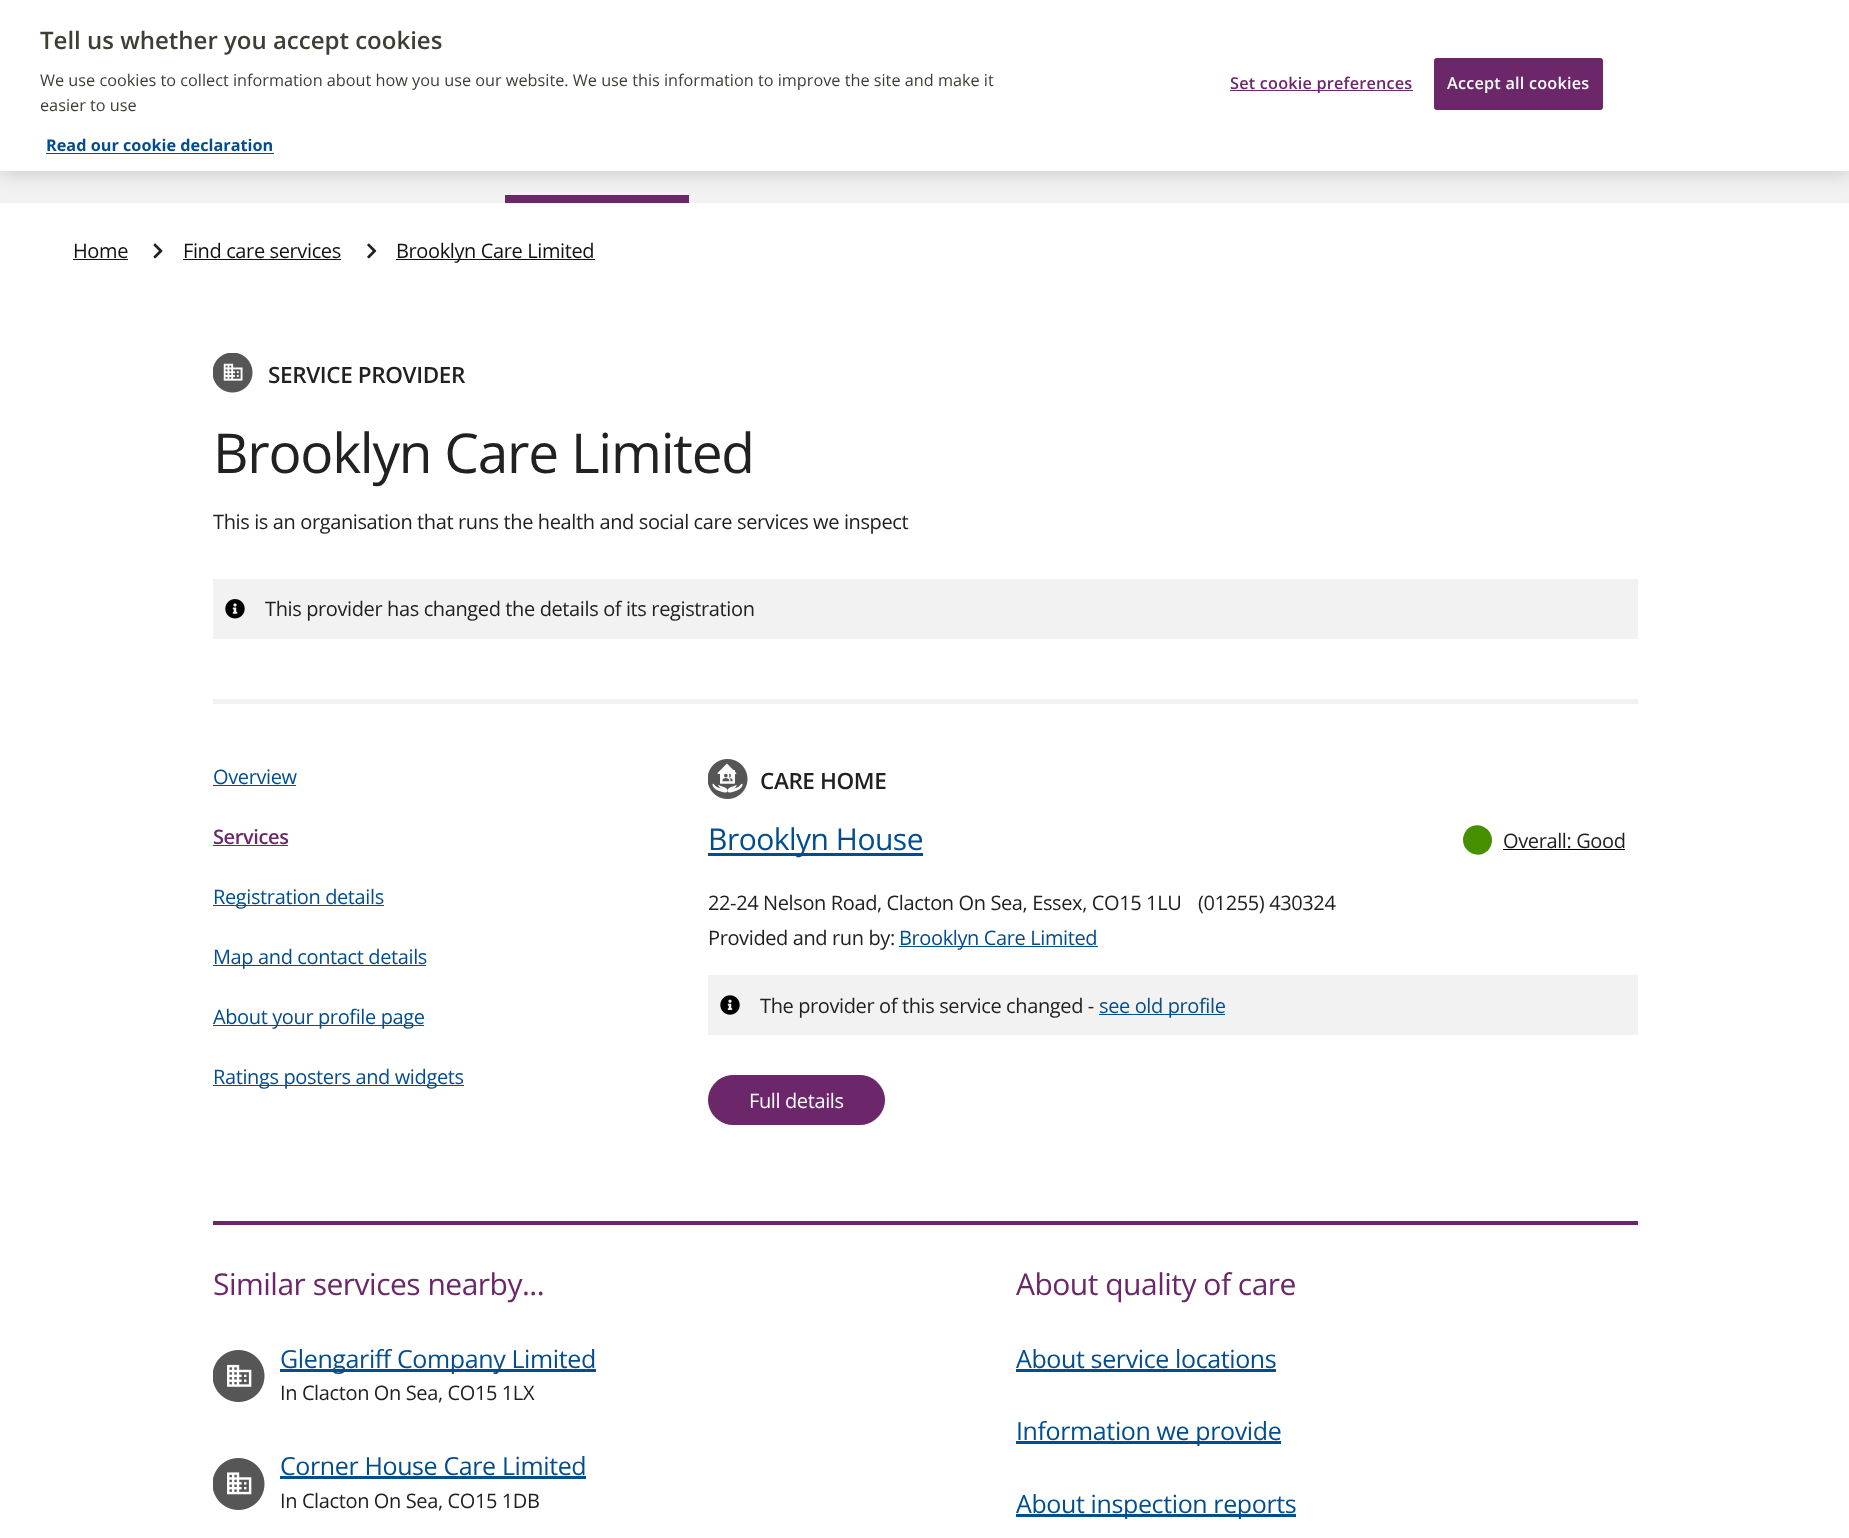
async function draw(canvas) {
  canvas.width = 1849
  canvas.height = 1538
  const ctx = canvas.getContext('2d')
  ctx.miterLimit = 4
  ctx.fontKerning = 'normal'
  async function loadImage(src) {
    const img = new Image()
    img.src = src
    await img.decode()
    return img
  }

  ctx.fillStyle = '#fff'
  ctx.fillRect(0, 0, 1849, 1538)
  ctx.fillStyle = '#f2f2f2'
  ctx.fillRect(0, 171, 1849, 32)
  ctx.fillStyle = '#6c276a'
  ctx.fillRect(505, 195, 184, 8)
  ctx.fillStyle = '#00000033'
  ctx.filter = 'blur(11px)'
  ctx.beginPath()
  ctx.rect(0, 0, 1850, 171)
  ctx.fill()
  ctx.filter = 'none'
  ctx.fillStyle = '#fff'
  ctx.fillRect(0, 0, 1849, 171)
  ctx.font = '600 24px Open Sans'
  ctx.fillStyle = '#3e3e35'
  ctx.fillText('Tell us whether you accept cookies', 40, 49)
  ctx.font = '16.25px Open Sans'
  ctx.fillText('We use cookies to collect information about how you use our website. We use this information to improve the site and make it', 40, 86)
  ctx.fillText('easier to use', 40, 111)
  ctx.font = 'bold 16.25px Open Sans'
  ctx.fillStyle = '#004d90'
  ctx.fillText('Read our cookie declaration', 46, 151)
  ctx.fillRect(46, 153, 228, 1)
  ctx.fillStyle = '#6c276a'
  ctx.fillRect(1230, 90, 183, 1)
  ctx.letterSpacing = '0.2px'
  ctx.font = '600 16.25px Open Sans'
  ctx.fillText('Set cookie preferences', 1230, 89)
  ctx.beginPath()
  ctx.roundRect(1434.5, 58.5, 168, 51, 2)
  ctx.fill()
  ctx.strokeStyle = '#6c276a'
  ctx.stroke()
  ctx.fillStyle = '#fefefe'
  ctx.fillText('Accept all cookies', 1447, 89)
  ctx.letterSpacing = '-0.38px'
  ctx.font = '20px Open Sans'
  ctx.fillStyle = '#111'
  ctx.fillText('Home', 73, 258)
  ctx.fillRect(73, 259, 55, 1)
  ctx.drawImage(await loadImage('image0.png'), 153, 243, 10, 16)
  ctx.fillText('Find care services', 183, 258)
  ctx.fillRect(183, 259, 158, 1)
  ctx.drawImage(await loadImage('image1.png'), 367, 243, 10, 16)
  ctx.fillRect(396, 259, 199, 1)
  ctx.fillText('Brooklyn Care Limited', 396, 258)
  ctx.fillStyle = '#f2f2f2'
  ctx.fillRect(213, 699, 1425, 5)
  ctx.drawImage(await loadImage('image2.png'), 213, 353, 40, 40)
  ctx.font = '600 22.5px Open Sans'
  ctx.fillStyle = '#212121'
  ctx.fillText('SERVICE PROVIDER', 268, 383)
  ctx.letterSpacing = '-1.25px'
  ctx.font = '55px Open Sans'
  ctx.fillText('Brooklyn Care Limited', 213, 473)
  ctx.letterSpacing = '-0.38px'
  ctx.font = '20px Open Sans'
  ctx.fillText('This is an organisation that runs the health and social care services we inspect', 213, 529)
  ctx.fillStyle = '#f2f2f2'
  ctx.fillRect(213, 579, 1425, 60)
  ctx.drawImage(await loadImage('image3.png'), 225, 599, 20, 20)
  ctx.fillStyle = '#212121'
  ctx.fillText('This provider has changed the details of its registration', 265, 616)
  ctx.fillStyle = '#004d90'
  ctx.fillText('Overview', 213, 784)
  ctx.fillRect(213, 785, 83, 1)
  ctx.font = '600 20px Open Sans'
  ctx.fillStyle = '#6c276a'
  ctx.fillText('Services', 213, 844)
  ctx.fillRect(213, 845, 75, 1)
  ctx.fillStyle = '#004d90'
  ctx.fillRect(213, 905, 171, 1)
  ctx.font = '20px Open Sans'
  ctx.fillText('Registration details', 213, 904)
  ctx.fillRect(213, 965, 213, 1)
  ctx.fillText('Map and contact details', 213, 964)
  ctx.fillRect(213, 1025, 211, 1)
  ctx.fillText('About your profile page', 213, 1024)
  ctx.fillRect(213, 1085, 251, 1)
  ctx.fillText('Ratings posters and widgets', 213, 1084)
  ctx.drawImage(await loadImage('image4.png'), 708, 759, 40, 40)
  ctx.font = '600 22.5px Open Sans'
  ctx.fillStyle = '#212121'
  ctx.fillText('CARE HOME', 760, 789)
  ctx.fillStyle = '#004d90'
  ctx.fillRect(708, 853, 215, 3)
  ctx.letterSpacing = '-0.5px'
  ctx.font = '30px Open Sans'
  ctx.fillText('Brooklyn House', 708, 850)
  ctx.fillStyle = '#458f00'
  ctx.beginPath()
  ctx.moveTo(1467, 829.5)
  ctx.bezierCurveTo(1477, 820, 1493, 828, 1492, 841.5)
  ctx.bezierCurveTo(1491.5, 845, 1490, 848, 1488, 850.5)
  ctx.bezierCurveTo(1478, 860, 1462, 852, 1463, 838.5)
  ctx.bezierCurveTo(1463.5, 835, 1465, 832, 1467, 829.5)
  ctx.closePath()
  ctx.fill()
  ctx.letterSpacing = '-0.38px'
  ctx.font = '20px Open Sans'
  ctx.fillStyle = '#212121'
  ctx.fillText('Overall: Good', 1503, 848)
  ctx.fillStyle = '#000'
  ctx.fillRect(1503, 849, 122, 1)
  ctx.fillStyle = '#212121'
  ctx.fillText('22-24 Nelson Road, Clacton On Sea, Essex, CO15 1LU', 708, 910)
  ctx.fillText('(01255) 430324', 1198, 910)
  ctx.fillText('Provided and run by:', 708, 945)
  ctx.fillStyle = '#004d90'
  ctx.fillRect(899, 946, 199, 1)
  ctx.fillText('Brooklyn Care Limited', 899, 945)
  ctx.fillStyle = '#f2f2f2'
  ctx.fillRect(708, 975, 930, 60)
  ctx.drawImage(await loadImage('image5.png'), 720, 995, 20, 20)
  ctx.fillStyle = '#212121'
  ctx.fillText('The provider of this service changed -', 760, 1013)
  ctx.fillStyle = '#004d90'
  ctx.fillRect(1099, 1014, 126, 1)
  ctx.fillText('see old profile', 1099, 1013)
  ctx.fillStyle = '#6c276a'
  ctx.beginPath()
  ctx.roundRect(708.5, 1075.5, 176, 49, 24.5)
  ctx.fill()
  ctx.stroke()
  ctx.fillStyle = '#fefefe'
  ctx.fillText('Full details', 749, 1108)
  ctx.fillStyle = '#6c276a'
  ctx.fillRect(213, 1221, 1425, 4)
  ctx.letterSpacing = '-0.5px'
  ctx.font = '30px Open Sans'
  ctx.fillText('Similar services nearby...', 213, 1295)
  ctx.drawImage(await loadImage('image6.png'), 213, 1350, 52, 52)
  ctx.fillStyle = '#004d90'
  ctx.fillRect(280, 1369, 316, 3)
  ctx.letterSpacing = '-0.38px'
  ctx.font = '25px Open Sans'
  ctx.fillText('Glengariff Company Limited', 280, 1368)
  ctx.font = '20px Open Sans'
  ctx.fillStyle = '#212121'
  ctx.fillText('In Clacton On Sea, CO15 1LX', 280, 1400)
  ctx.drawImage(await loadImage('image7.png'), 213, 1458, 52, 52)
  ctx.font = '25px Open Sans'
  ctx.fillStyle = '#004d90'
  ctx.fillText('Corner House Care Limited', 280, 1475)
  ctx.fillRect(280, 1476, 306, 3)
  ctx.font = '20px Open Sans'
  ctx.fillStyle = '#212121'
  ctx.fillText('In Clacton On Sea, CO15 1DB', 280, 1508)
  ctx.letterSpacing = '-0.5px'
  ctx.font = '30px Open Sans'
  ctx.fillStyle = '#6c276a'
  ctx.fillText('About quality of care', 1016, 1295)
  ctx.letterSpacing = '-0.38px'
  ctx.font = '25px Open Sans'
  ctx.fillStyle = '#004d90'
  ctx.fillText('About service locations', 1016, 1368)
  ctx.fillRect(1016, 1369, 260, 3)
  ctx.fillRect(1016, 1441, 265, 3)
  ctx.fillText('Information we provide', 1016, 1440)
  ctx.fillRect(1016, 1514, 280, 3)
  ctx.fillText('About inspection reports', 1016, 1513)
}

draw(document.querySelector('canvas'))
